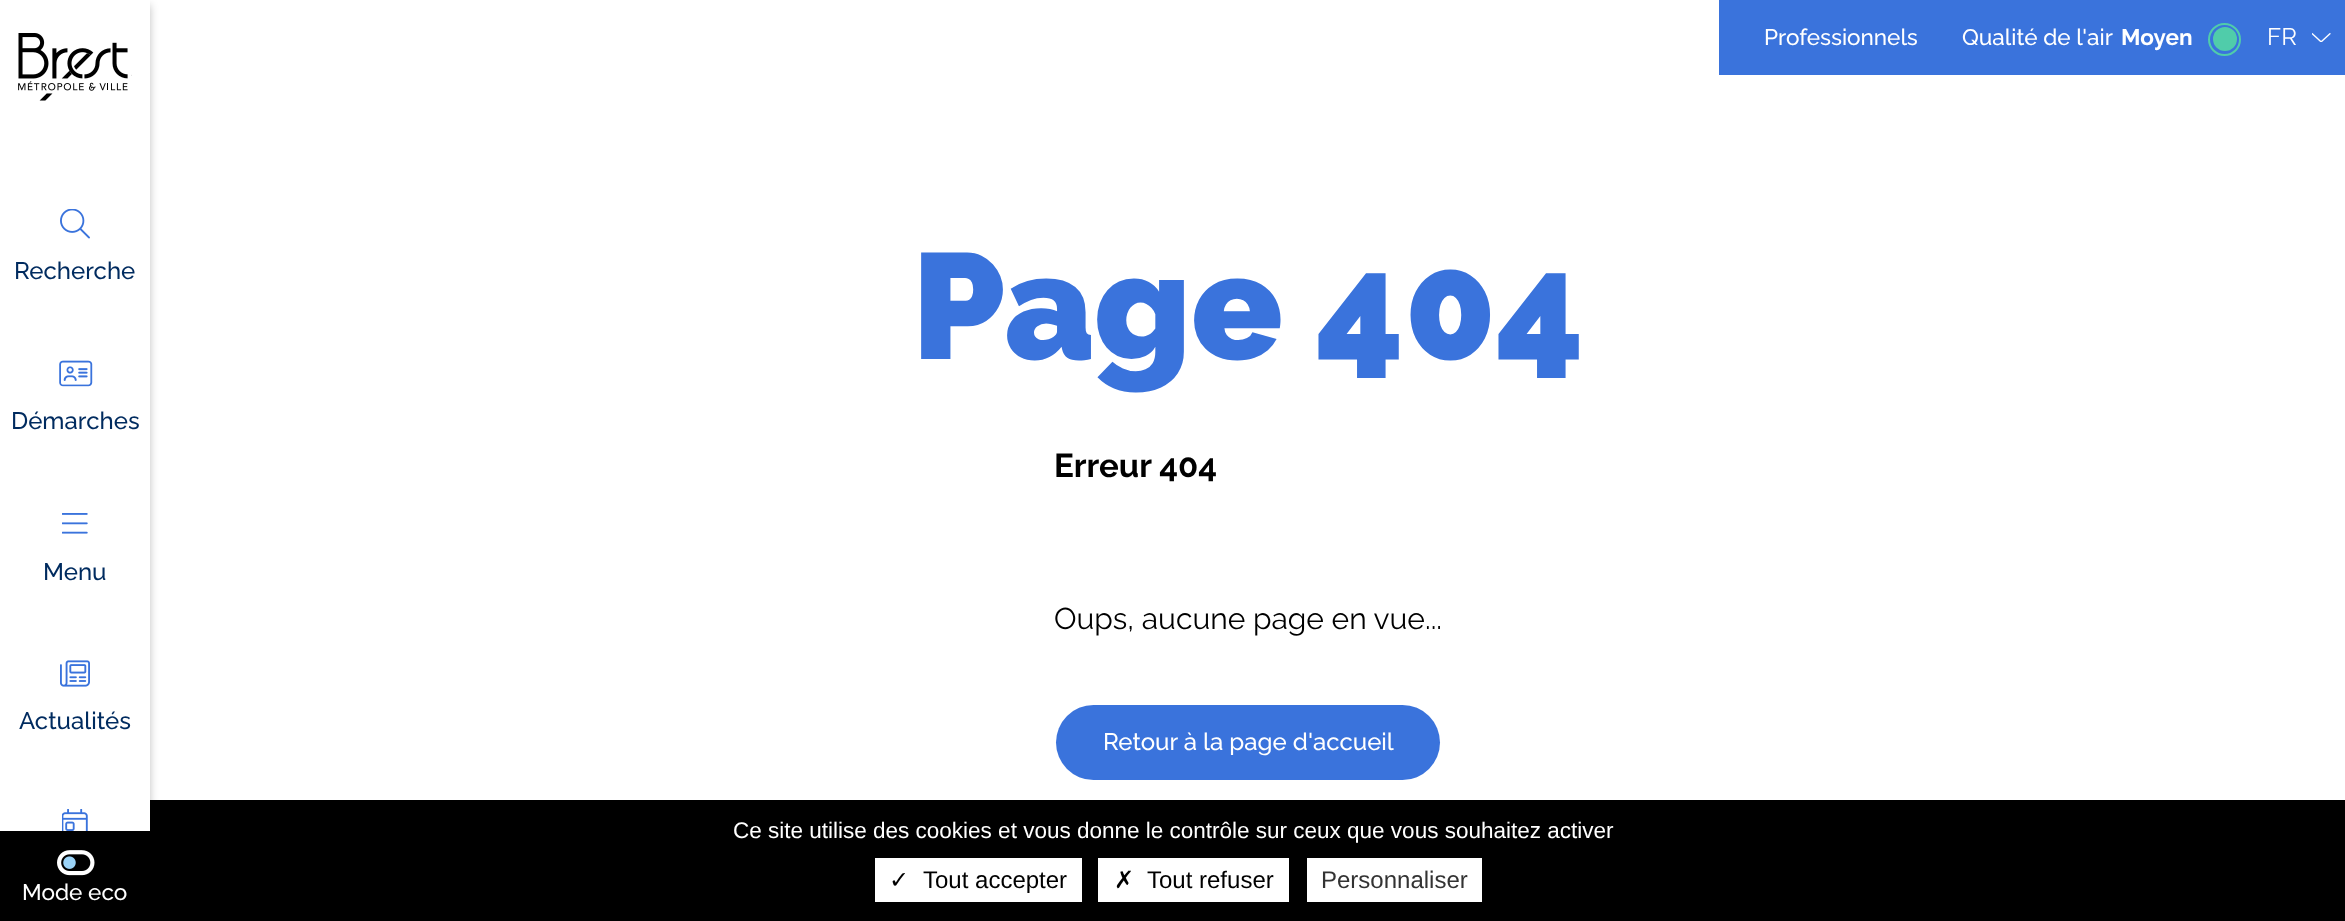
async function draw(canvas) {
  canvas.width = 2345
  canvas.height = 921
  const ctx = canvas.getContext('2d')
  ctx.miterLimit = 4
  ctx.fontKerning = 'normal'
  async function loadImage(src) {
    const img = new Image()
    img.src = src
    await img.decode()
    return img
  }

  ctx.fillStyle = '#fff'
  ctx.fillRect(0, 0, 2345, 921)
  ctx.fillStyle = '#3a73dc'
  ctx.fillRect(1719, 0, 626, 75)
  ctx.font = '500 22.5px Raleway'
  ctx.fillStyle = '#fff'
  ctx.fillText('Professionnels', 1764, 45)
  ctx.fillText('Qualité de l\'air', 1962, 45)
  ctx.font = 'bold 22.5px Raleway'
  ctx.fillText('Moyen', 2121, 45)
  ctx.fillStyle = '#50ccaa'
  ctx.beginPath()
  ctx.arc(2225, 39, 12, 0, 2 * Math.PI)
  ctx.fill()
  ctx.beginPath()
  ctx.arc(2224.5, 39.5, 15.5, 0, 2 * Math.PI)
  ctx.strokeStyle = '#50ccaa'
  ctx.lineWidth = 2
  ctx.stroke()
  ctx.font = '24px Raleway'
  ctx.fillStyle = '#fff'
  ctx.fillText('FR', 2267, 45)
  ctx.drawImage(await loadImage('image0.png'), 2312, 33, 19, 9)
  ctx.fillStyle = '#000'
  ctx.fillRect(150, 800, 2195, 121)
  ctx.fillStyle = '#00000040'
  ctx.filter = 'blur(4.5px)'
  ctx.beginPath()
  ctx.rect(0, 5, 150, 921)
  ctx.fill()
  ctx.filter = 'none'
  ctx.fillStyle = '#fff'
  ctx.fillRect(0, 0, 150, 831)
  ctx.drawImage(await loadImage('image1.png'), 18, 33, 114, 68)
  ctx.drawImage(await loadImage('image2.png'), 60, 209, 30, 30)
  ctx.font = '500 24px Raleway'
  ctx.fillStyle = '#002b5f'
  ctx.fillText('Recherche', 14, 279)
  ctx.drawImage(await loadImage('image3.png'), 59, 360, 34, 27)
  ctx.fillText('Démarches', 11, 429)
  ctx.drawImage(await loadImage('image4.png'), 62, 513, 26, 21)
  ctx.fillText('Menu', 43, 580)
  ctx.drawImage(await loadImage('image5.png'), 60, 660, 30, 27)
  ctx.fillText('Actualités', 19, 729)
  ctx.drawImage(await loadImage('image6.png'), 62, 809, 26, 22)
  ctx.fillStyle = '#000'
  ctx.fillRect(0, 831, 150, 90)
  ctx.drawImage(await loadImage('image7.png'), 57, 850, 38, 26)
  ctx.font = '500 22.5px Raleway'
  ctx.fillStyle = '#fff'
  ctx.fillText('Mode eco', 22, 900)
  ctx.font = '900 150px Raleway'
  ctx.fillStyle = '#3a73dc'
  ctx.fillText('Page 404', 912, 359)
  ctx.font = 'bold 33px Raleway'
  ctx.fillStyle = '#000'
  ctx.fillText('Erreur 404', 1054, 477)
  ctx.font = '30px Raleway'
  ctx.fillText('Oups, aucune page en vue...', 1054, 629)
  ctx.fillStyle = '#3a73dc'
  ctx.beginPath()
  ctx.roundRect(1056, 705, 384, 75, 37.5)
  ctx.fill()
  ctx.font = '500 24px Raleway'
  ctx.fillStyle = '#fff'
  ctx.fillText('Retour à la page d\'accueil', 1103, 750)
  ctx.font = '22.5px Liberation Sans'
  ctx.fillText('Ce site utilise des cookies et vous donne le contrôle sur ceux que vous souhaitez activer', 733, 838)
  ctx.fillRect(875, 858, 207, 44)
  ctx.font = '24px DejaVu Sans'
  ctx.fillStyle = '#000'
  ctx.fillText('✓', 889, 888)
  ctx.font = '24px Liberation Sans'
  ctx.fillText('Tout accepter', 923, 888)
  ctx.fillStyle = '#fff'
  ctx.fillRect(1098, 858, 191, 44)
  ctx.font = '24px DejaVu Sans'
  ctx.fillStyle = '#000'
  ctx.fillText('✗', 1114, 888)
  ctx.font = '24px Liberation Sans'
  ctx.fillText('Tout refuser', 1147, 888)
  ctx.fillStyle = '#fff'
  ctx.fillRect(1307, 858, 175, 44)
  ctx.fillStyle = '#333'
  ctx.fillText('Personnaliser', 1321, 888)
}

draw(document.querySelector('canvas'))
